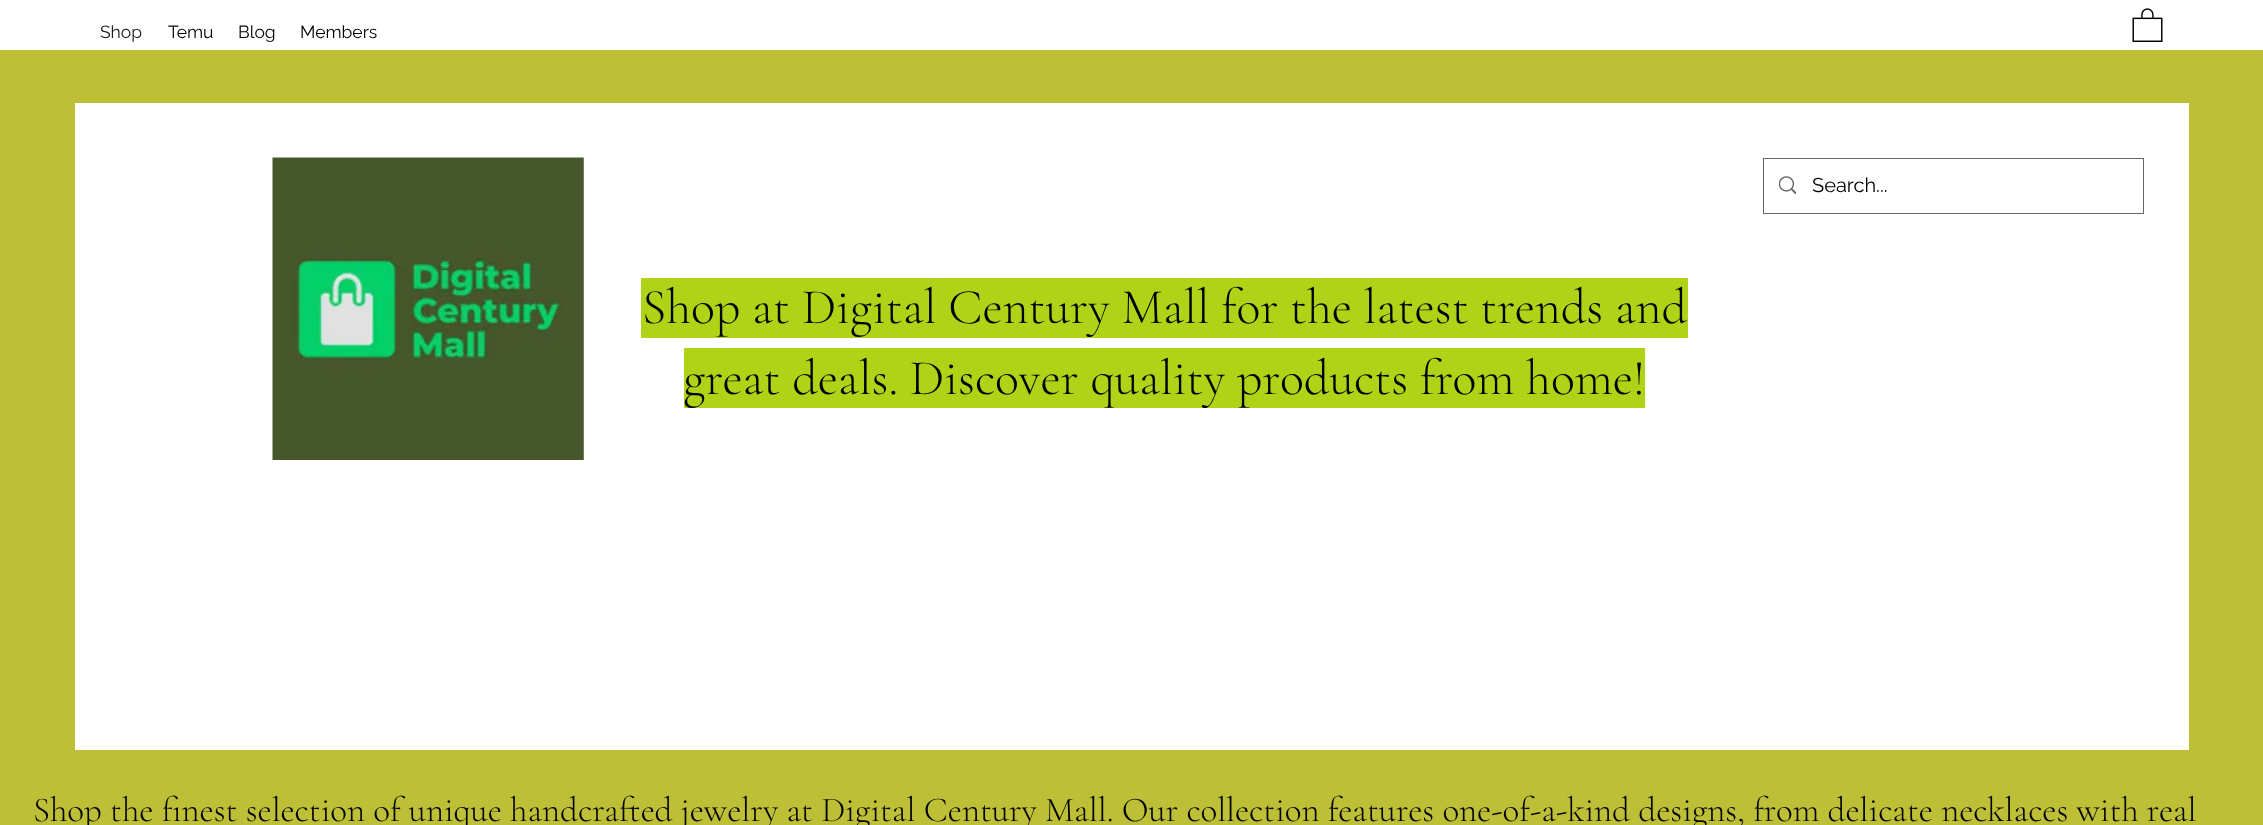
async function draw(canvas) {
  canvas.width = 2263
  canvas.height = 825
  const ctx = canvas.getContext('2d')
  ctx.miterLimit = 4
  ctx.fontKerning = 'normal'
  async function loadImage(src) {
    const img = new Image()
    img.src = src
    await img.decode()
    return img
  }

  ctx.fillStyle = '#bdbf37'
  ctx.fillRect(0, 0, 2263, 825)
  ctx.fillStyle = '#fff'
  ctx.fillRect(0, 0, 2263, 50)
  ctx.font = '17.5px Raleway'
  ctx.fillStyle = '#191919'
  ctx.fillText('Shop', 100, 38)
  ctx.fillStyle = '#000'
  ctx.fillText('Temu', 168, 38)
  ctx.fillText('Blog', 238, 38)
  ctx.fillText('Members', 300, 38)
  ctx.drawImage(await loadImage('image0.png'), 2132, 8, 31, 34)
  ctx.fillStyle = '#fff'
  ctx.fillRect(75, 103, 2114, 647)
  ctx.drawImage(await loadImage('image1.png'), 272, 157, 312, 303)
  ctx.strokeStyle = '#666'
  ctx.strokeRect(1763.5, 158.5, 380, 55)
  ctx.drawImage(await loadImage('image2.png'), 1779, 176, 17, 18)
  ctx.font = '20px Raleway'
  ctx.fillStyle = '#000'
  ctx.fillText('Search...', 1812, 192)
  ctx.fillStyle = '#b0d217'
  ctx.fillRect(641, 278, 1047, 60)
  ctx.font = '300 50px Cormorant Garamond'
  ctx.fillStyle = '#000'
  ctx.fillText('Shop at Digital Century Mall for the latest trends and', 642, 323)
  ctx.fillStyle = '#b0d217'
  ctx.fillRect(684, 348, 961, 60)
  ctx.fillStyle = '#000'
  ctx.fillText('great deals. Discover quality products from home!', 683, 394)
  ctx.font = '300 35px Cormorant Garamond'
  ctx.fillText('Shop the finest selection of unique handcrafted jewelry at Digital Century Mall. Our collection features one-of-a-kind designs, from delicate necklaces with real', 33, 821)
}

draw(document.querySelector('canvas'))
